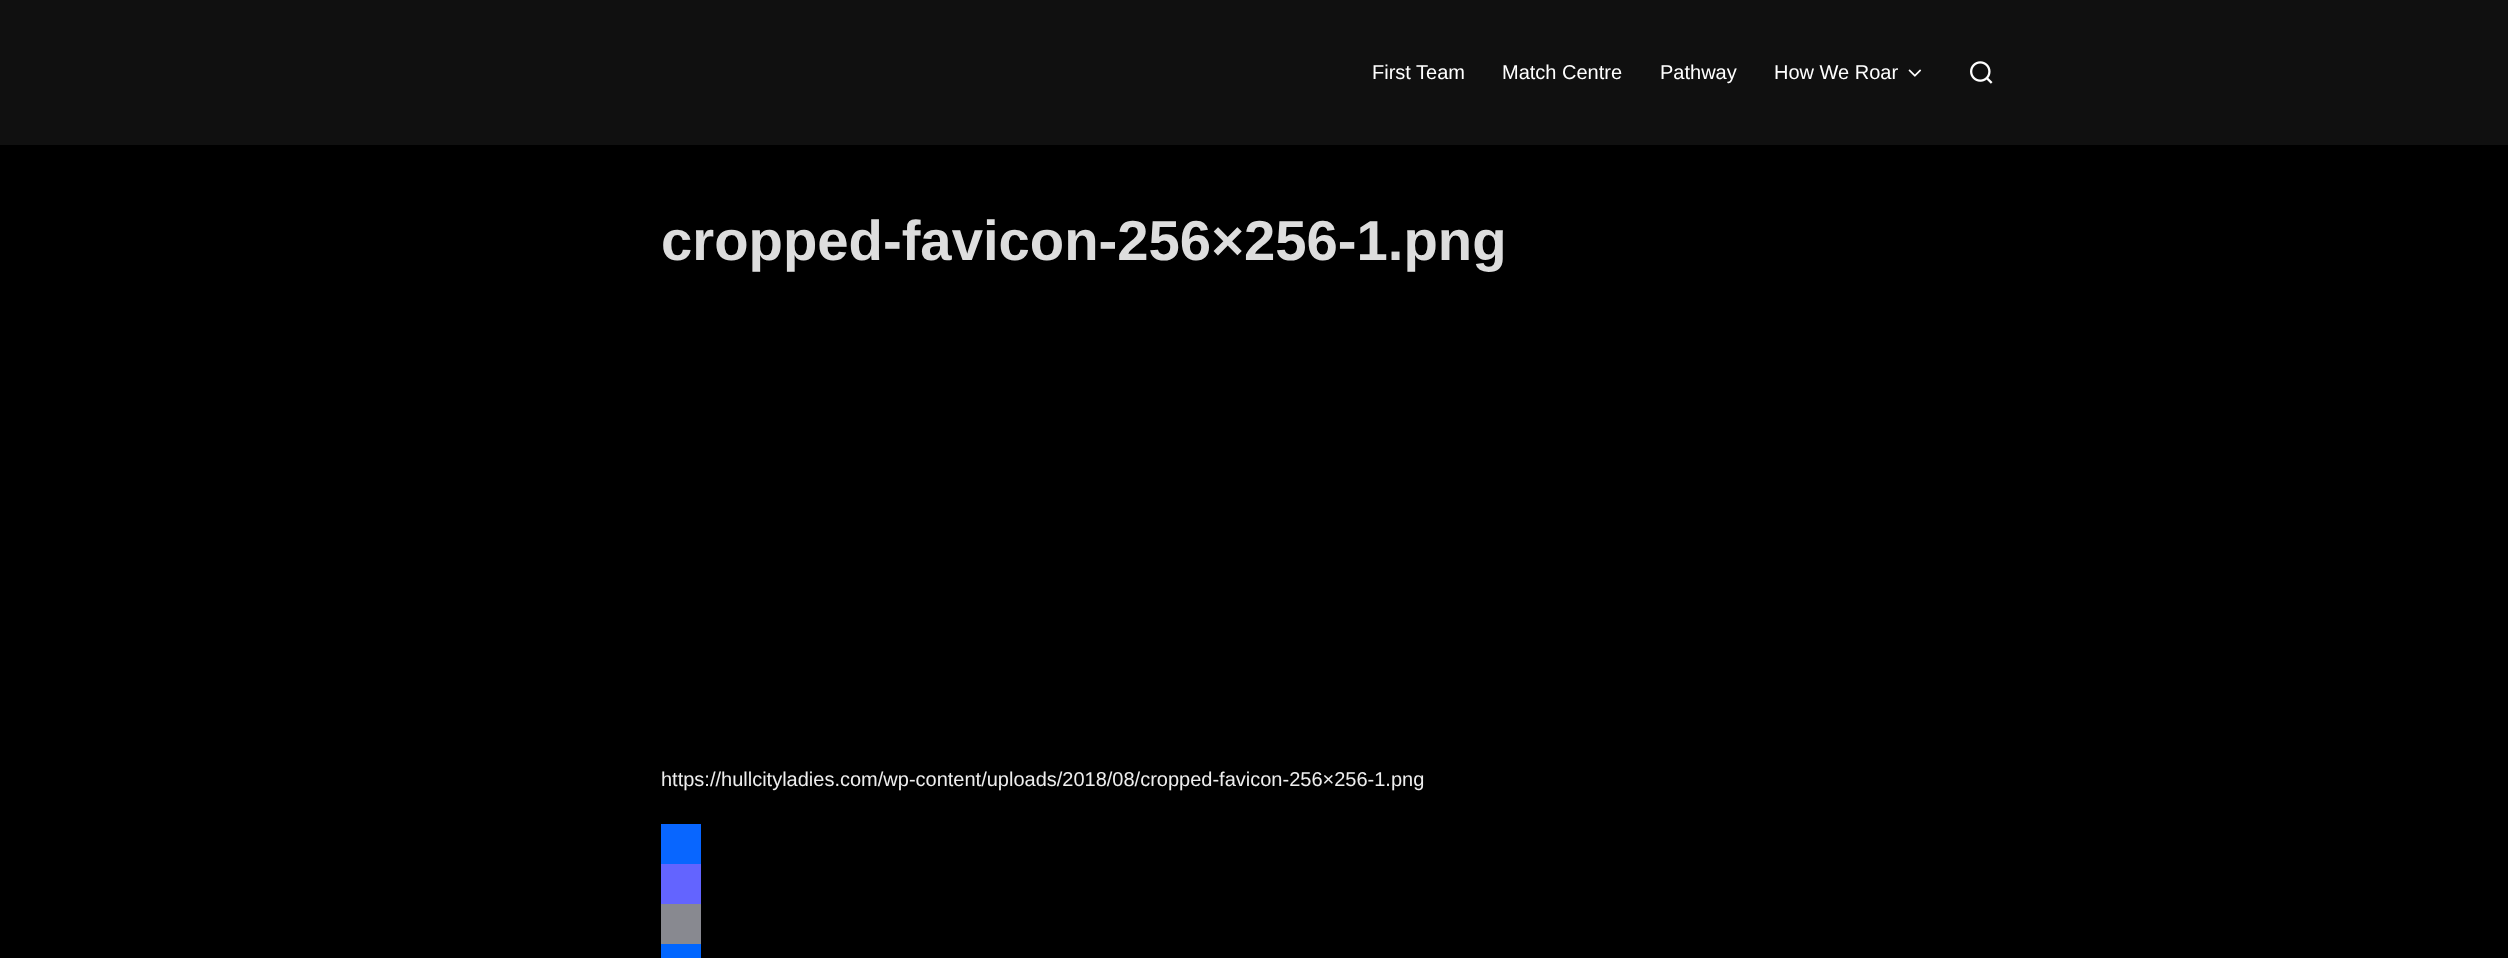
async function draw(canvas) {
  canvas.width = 2508
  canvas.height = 958
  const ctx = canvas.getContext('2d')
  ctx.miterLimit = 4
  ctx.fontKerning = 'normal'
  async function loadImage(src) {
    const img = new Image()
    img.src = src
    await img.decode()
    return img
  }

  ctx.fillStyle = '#000'
  ctx.fillRect(0, 0, 2508, 958)
  ctx.fillStyle = '#101010'
  ctx.fillRect(0, 0, 2508, 145)
  ctx.font = '20px Liberation Sans'
  ctx.fillStyle = '#fff'
  ctx.fillText('First Team', 1372, 79)
  ctx.fillText('Match Centre', 1502, 79)
  ctx.fillText('Pathway', 1660, 79)
  ctx.fillText('How We Roar', 1774, 79)
  ctx.drawImage(await loadImage('image0.png'), 1908, 69, 14, 8)
  ctx.drawImage(await loadImage('image1.png'), 1970, 61, 23, 23)
  ctx.font = 'bold 56.25px Liberation Sans'
  ctx.fillStyle = '#ddd'
  ctx.fillText('cropped-favicon-256×256-1.png', 661, 260)
  ctx.font = '20px Liberation Sans'
  ctx.fillStyle = '#eee'
  ctx.fillText('https://hullcityladies.com/wp-content/uploads/2018/08/cropped-favicon-256×256-1.png', 661, 786)
  ctx.fillStyle = '#0866ff'
  ctx.fillRect(661, 824, 40, 40)
  ctx.fillStyle = '#6364ff'
  ctx.fillRect(661, 864, 40, 40)
  ctx.fillStyle = '#888990'
  ctx.fillRect(661, 904, 40, 40)
  ctx.fillStyle = '#0166ff'
  ctx.fillRect(661, 944, 40, 14)
}

draw(document.querySelector('canvas'))
